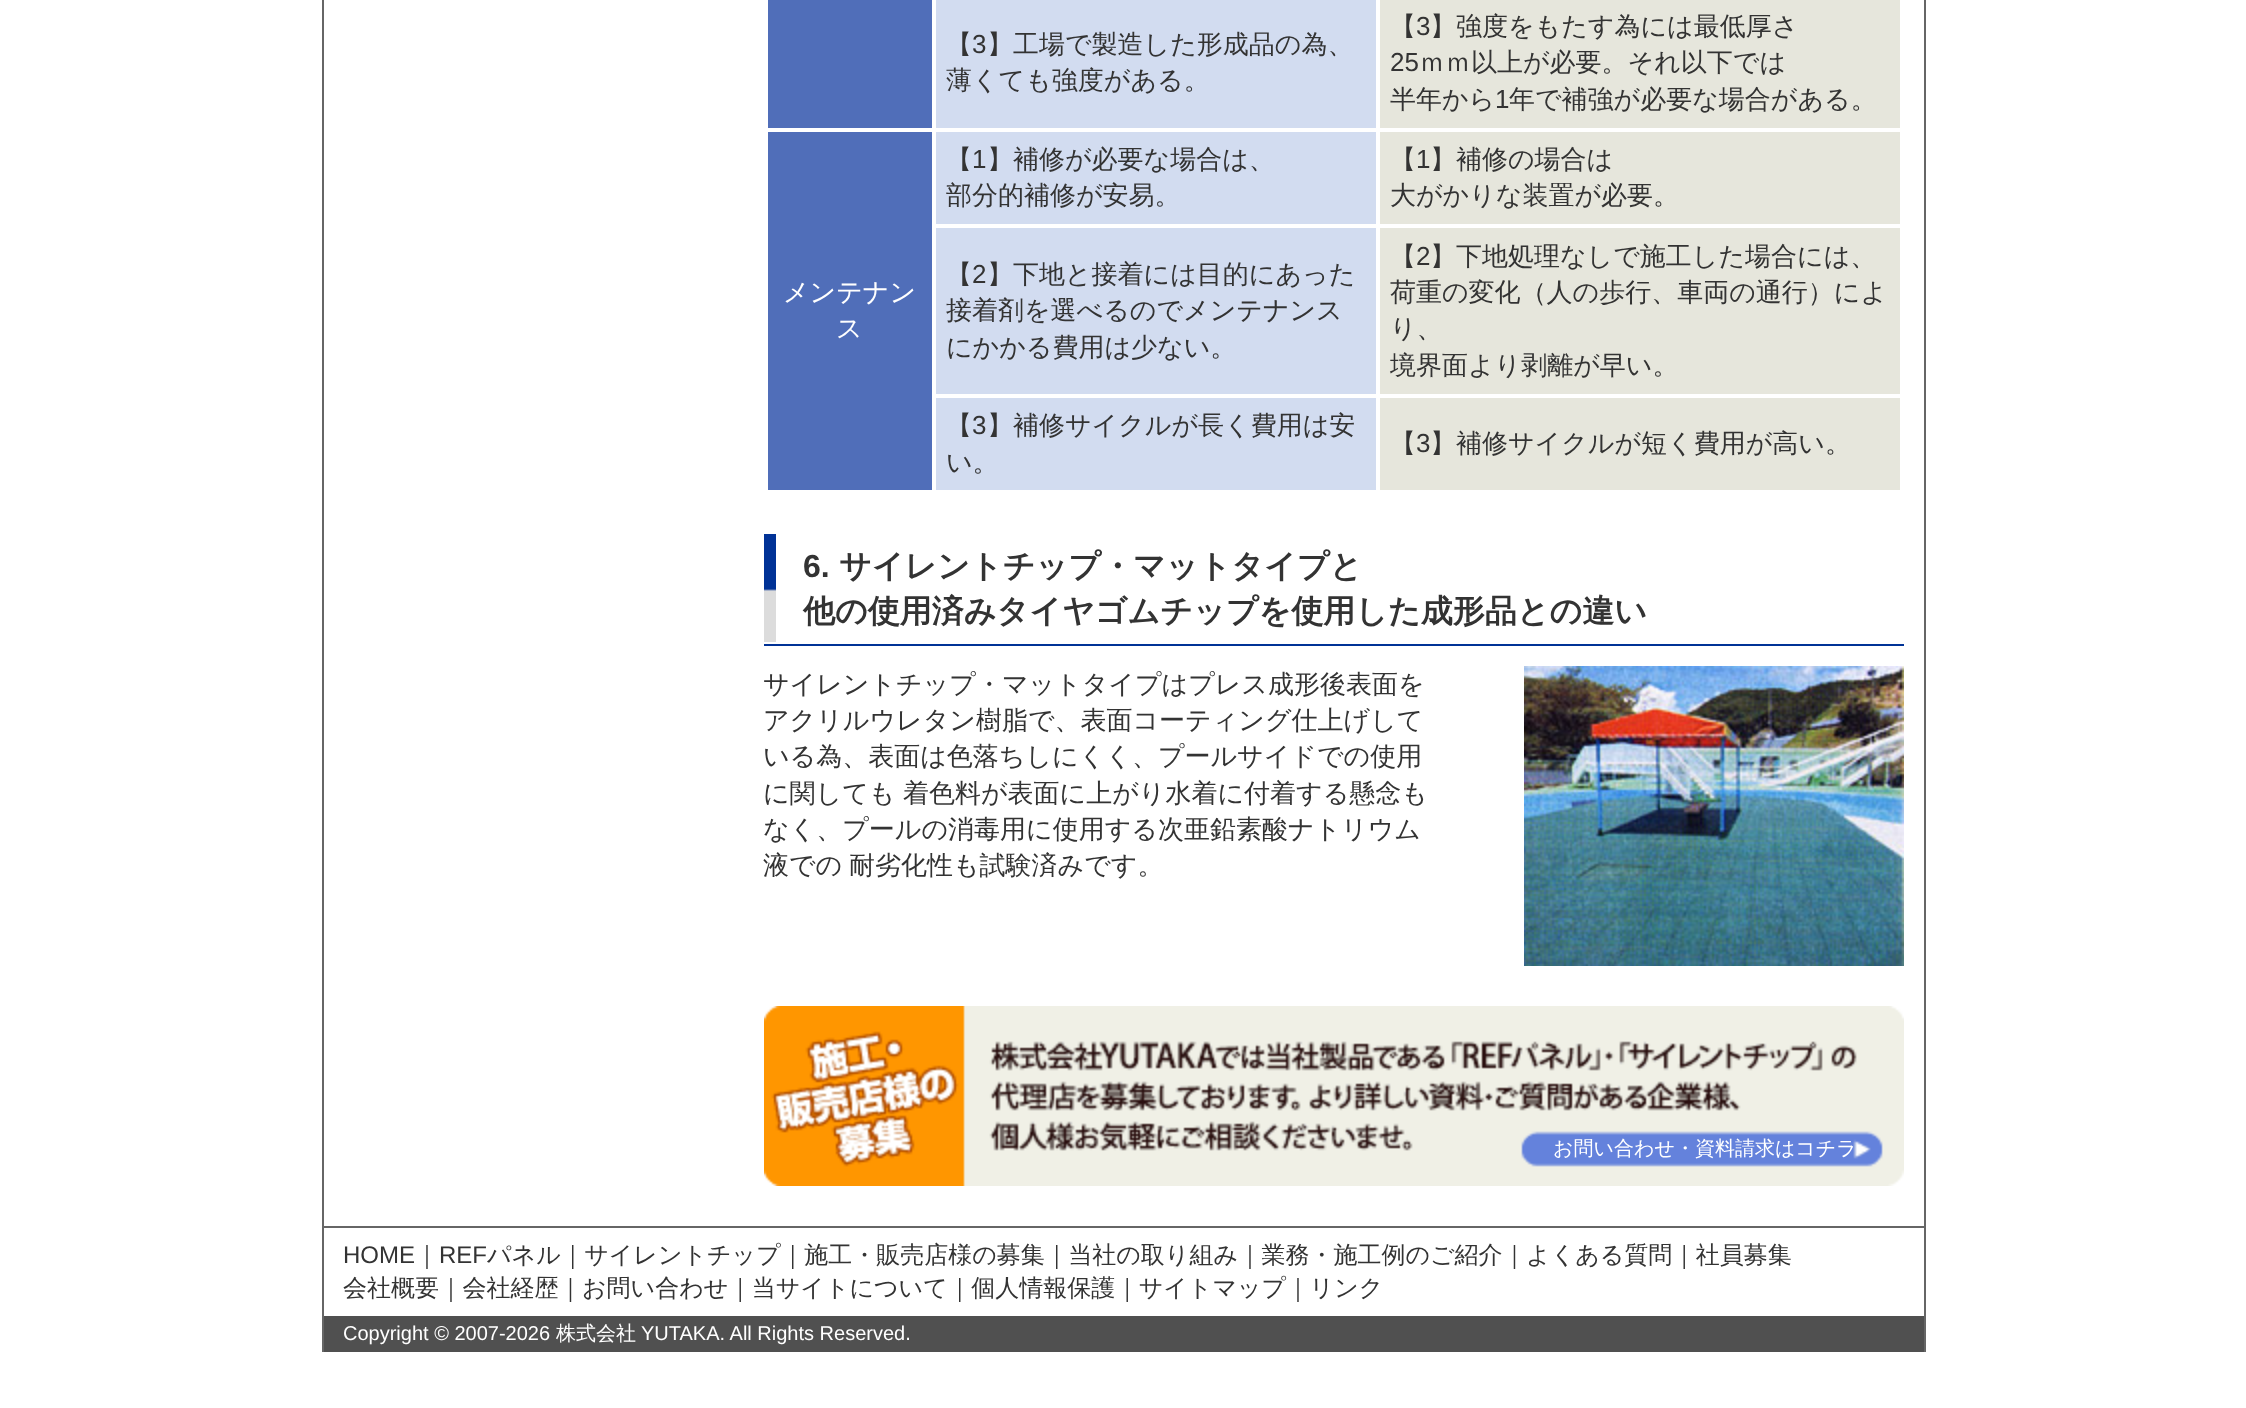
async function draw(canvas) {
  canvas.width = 2246
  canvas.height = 1408
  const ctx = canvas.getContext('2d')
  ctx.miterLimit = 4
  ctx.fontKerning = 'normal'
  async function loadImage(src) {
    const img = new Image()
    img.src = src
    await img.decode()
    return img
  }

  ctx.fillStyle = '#fff'
  ctx.fillRect(0, 0, 2246, 1408)
  ctx.fillStyle = '#666'
  ctx.fillRect(1924, 0, 2, 1352)
  ctx.fillRect(322, 0, 2, 1352)
  ctx.fillStyle = '#506eb9'
  ctx.fillRect(768, 0, 164, 128)
  ctx.fillStyle = '#d2dcf0'
  ctx.fillRect(936, 0, 440, 128)
  ctx.font = '500 26px WenQuanYi Zen Hei'
  ctx.fillStyle = '#333'
  ctx.fillText('【', 946, 53)
  ctx.font = '26px Liberation Sans'
  ctx.fillText('3', 972, 53)
  ctx.font = '500 26px WenQuanYi Zen Hei'
  ctx.fillText('】工場で製造した形成品の為、', 987, 53)
  ctx.fillText('薄くても強度がある。', 946, 89)
  ctx.fillStyle = '#e6e6dc'
  ctx.fillRect(1380, 0, 520, 128)
  ctx.fillStyle = '#333'
  ctx.fillText('【', 1390, 35)
  ctx.font = '26px Liberation Sans'
  ctx.fillText('3', 1416, 35)
  ctx.font = '500 26px WenQuanYi Zen Hei'
  ctx.fillText('】強度をもたす為には最低厚さ', 1430, 35)
  ctx.font = '26px Liberation Sans'
  ctx.fillText('25', 1390, 71)
  ctx.font = '500 26px WenQuanYi Zen Hei'
  ctx.fillText('ｍｍ以上が必要。それ以下では', 1419, 71)
  ctx.fillText('半年から', 1390, 108)
  ctx.font = '26px Liberation Sans'
  ctx.fillText('1', 1495, 108)
  ctx.font = '500 26px WenQuanYi Zen Hei'
  ctx.fillText('年で補強が必要な場合がある。', 1509, 108)
  ctx.fillStyle = '#d2dcf0'
  ctx.fillRect(936, 132, 440, 92)
  ctx.fillStyle = '#333'
  ctx.fillText('【', 946, 168)
  ctx.font = '26px Liberation Sans'
  ctx.fillText('1', 972, 168)
  ctx.font = '500 26px WenQuanYi Zen Hei'
  ctx.fillText('】補修が必要な場合は、', 987, 168)
  ctx.fillText('部分的補修が安易。', 946, 204)
  ctx.fillStyle = '#e6e6dc'
  ctx.fillRect(1380, 132, 520, 92)
  ctx.fillStyle = '#333'
  ctx.fillText('【', 1390, 168)
  ctx.font = '26px Liberation Sans'
  ctx.fillText('1', 1416, 168)
  ctx.font = '500 26px WenQuanYi Zen Hei'
  ctx.fillText('】補修の場合は', 1430, 168)
  ctx.fillText('大がかりな装置が必要。', 1390, 204)
  ctx.fillStyle = '#506eb9'
  ctx.fillRect(768, 132, 164, 358)
  ctx.fillStyle = '#fff'
  ctx.fillText('メンテナン', 783, 301)
  ctx.fillText('ス', 836, 337)
  ctx.fillStyle = '#d2dcf0'
  ctx.fillRect(936, 228, 440, 166)
  ctx.fillStyle = '#333'
  ctx.fillText('【', 946, 283)
  ctx.font = '26px Liberation Sans'
  ctx.fillText('2', 972, 283)
  ctx.font = '500 26px WenQuanYi Zen Hei'
  ctx.fillText('】下地と接着には目的にあった', 987, 283)
  ctx.fillText('接着剤を選べるのでメンテナンス', 946, 319)
  ctx.fillText('にかかる費用は少ない。', 946, 356)
  ctx.fillStyle = '#e6e6dc'
  ctx.fillRect(1380, 228, 520, 166)
  ctx.fillStyle = '#333'
  ctx.fillText('【', 1390, 265)
  ctx.font = '26px Liberation Sans'
  ctx.fillText('2', 1416, 265)
  ctx.font = '500 26px WenQuanYi Zen Hei'
  ctx.fillText('】下地処理なしで施工した場合には、', 1430, 265)
  ctx.fillText('荷重の変化（人の歩行、車両の通行）によ', 1390, 301)
  ctx.fillText('り、', 1390, 337)
  ctx.fillText('境界面より剥離が早い。', 1390, 374)
  ctx.fillStyle = '#d2dcf0'
  ctx.fillRect(936, 398, 440, 92)
  ctx.fillStyle = '#333'
  ctx.fillText('【', 946, 434)
  ctx.font = '26px Liberation Sans'
  ctx.fillText('3', 972, 434)
  ctx.font = '500 26px WenQuanYi Zen Hei'
  ctx.fillText('】補修サイクルが長く費用は安', 987, 434)
  ctx.fillText('い。', 946, 471)
  ctx.fillStyle = '#e6e6dc'
  ctx.fillRect(1380, 398, 520, 92)
  ctx.fillStyle = '#333'
  ctx.fillText('【', 1390, 452)
  ctx.font = '26px Liberation Sans'
  ctx.fillText('3', 1416, 452)
  ctx.font = '500 26px WenQuanYi Zen Hei'
  ctx.fillText('】補修サイクルが短く費用が高い。', 1430, 452)
  ctx.drawImage(await loadImage('image0.png'), 764, 534, 12, 108)
  ctx.fillStyle = '#003296'
  ctx.fillRect(764, 644, 1140, 2)
  ctx.font = 'bold 32px Liberation Sans'
  ctx.fillStyle = '#333'
  ctx.fillText('6.', 803, 577)
  ctx.font = 'bold 32px WenQuanYi Zen Hei'
  ctx.fillText('サイレントチップ・マットタイプと', 839, 577)
  ctx.fillText('他の使用済みタイヤゴムチップを使用した成形品との違い', 803, 622)
  ctx.font = '500 26px WenQuanYi Zen Hei'
  ctx.fillText('サイレントチップ・マットタイプはプレス成形後表面を', 763, 693)
  ctx.fillText('アクリルウレタン樹脂で、表面コーティング仕上げして', 763, 729)
  ctx.fillText('いる為、表面は色落ちしにくく、プールサイドでの使用', 763, 765)
  ctx.fillText('に関しても', 763, 802)
  ctx.fillText('着色料が表面に上がり水着に付着する懸念も', 903, 802)
  ctx.fillText('なく、プールの消毒用に使用する次亜鉛素酸ナトリウム', 763, 838)
  ctx.fillText('液での', 763, 874)
  ctx.fillText('耐劣化性も試験済みです。', 849, 874)
  ctx.drawImage(await loadImage('image1.png'), 1524, 666, 380, 300)
  ctx.drawImage(await loadImage('image2.png'), 764, 1006, 1140, 180)
  ctx.font = '500 20px WenQuanYi Zen Hei'
  ctx.fillStyle = '#fff'
  ctx.fillText('お問い合わせ・資料請求はコチラ', 1553, 1155)
  ctx.fillStyle = '#666'
  ctx.fillRect(324, 1226, 1600, 2)
  ctx.font = '24px Liberation Sans'
  ctx.fillStyle = '#333'
  ctx.fillText('HOME', 343, 1263)
  ctx.font = '500 24px WenQuanYi Zen Hei'
  ctx.fillText('｜', 415, 1263)
  ctx.font = '24px Liberation Sans'
  ctx.fillText('REF', 439, 1263)
  ctx.font = '500 24px WenQuanYi Zen Hei'
  ctx.fillText('パネル｜サイレントチップ｜施工・販売店様の募集｜当社の取り組み｜業務・施工例のご紹介｜よくある質問｜社員募集', 487, 1263)
  ctx.fillText('会社概要｜会社経歴｜お問い合わせ｜当サイトについて｜個人情報保護｜サイトマップ｜リンク', 343, 1296)
  ctx.fillStyle = '#505050'
  ctx.fillRect(324, 1316, 1600, 36)
  ctx.font = '20px Liberation Sans'
  ctx.fillStyle = '#fff'
  ctx.fillText('Copyright © 2007-2026', 343, 1340)
  ctx.font = '500 20px WenQuanYi Zen Hei'
  ctx.fillText('株式会社', 556, 1340)
  ctx.font = '20px Liberation Sans'
  ctx.fillText('YUTAKA. All Rights Reserved.', 641, 1340)
}

draw(document.querySelector('canvas'))
